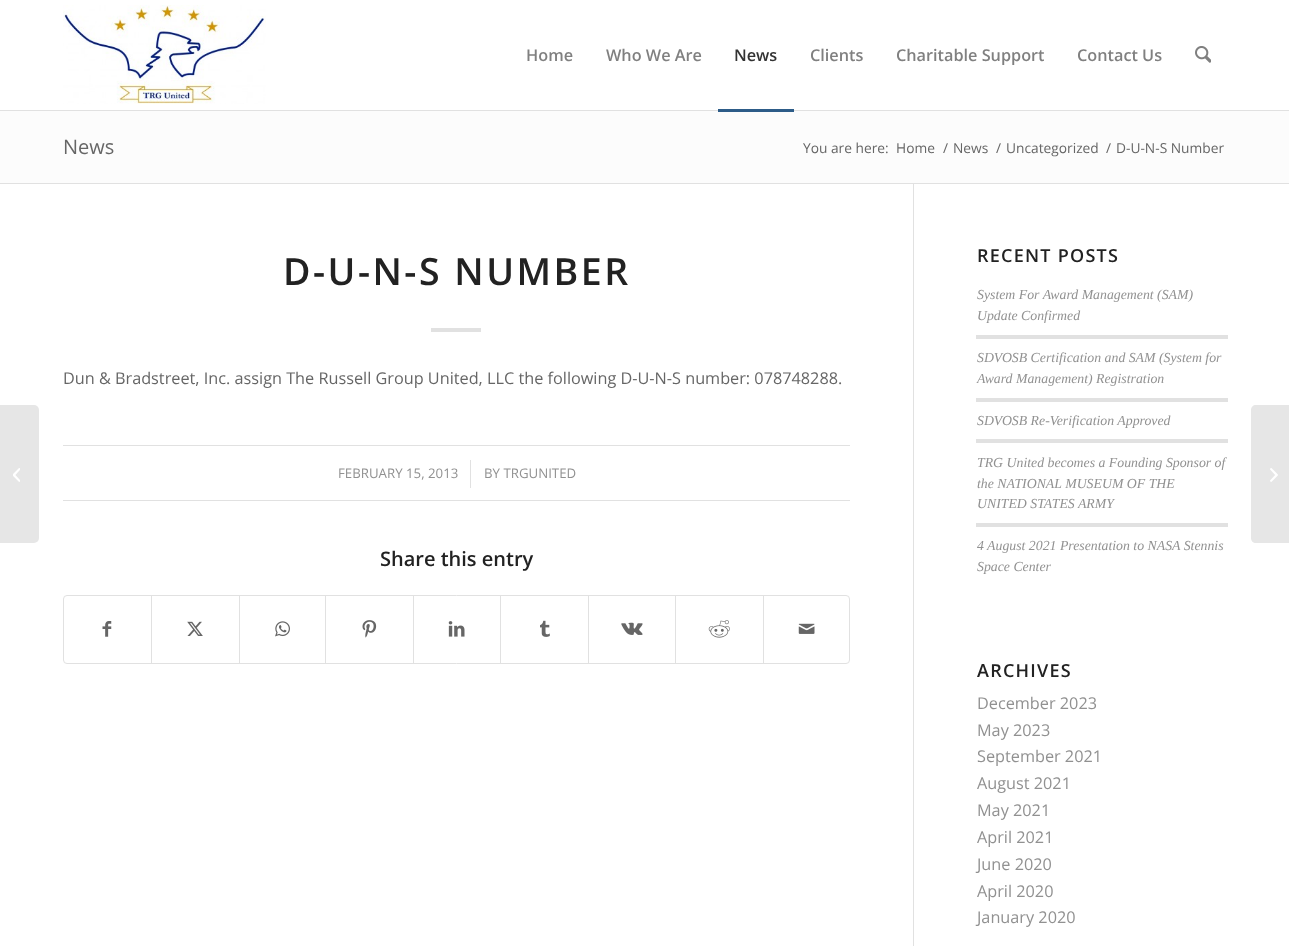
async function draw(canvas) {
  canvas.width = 1289
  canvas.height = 946
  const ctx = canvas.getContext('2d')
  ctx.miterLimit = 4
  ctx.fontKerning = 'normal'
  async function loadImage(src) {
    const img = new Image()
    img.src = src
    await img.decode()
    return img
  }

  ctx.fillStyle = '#fff'
  ctx.fillRect(0, 0, 1289, 946)
  ctx.fillStyle = '#e1e1e1'
  ctx.fillRect(0, 110, 1289, 1)
  ctx.drawImage(await loadImage('image0.png'), 63, 5, 203, 99)
  ctx.font = '600 16.25px Open Sans'
  ctx.fillStyle = '#808080'
  ctx.fillText('Home', 526, 61)
  ctx.fillText('Who We Are', 606, 61)
  ctx.fillStyle = '#333'
  ctx.fillText('News', 734, 61)
  ctx.fillStyle = '#fcfcfc'
  ctx.fillRect(0, 111, 1289, 72)
  ctx.fillStyle = '#2d5c88'
  ctx.fillRect(718, 109, 76, 3)
  ctx.fillStyle = '#808080'
  ctx.fillText('Clients', 810, 61)
  ctx.fillText('Charitable Support', 896, 61)
  ctx.fillText('Contact Us', 1077, 61)
  ctx.drawImage(await loadImage('image1.png'), 1195, 46, 16, 17)
  ctx.fillStyle = '#e6e6e6'
  ctx.beginPath()
  ctx.roundRect(0, 405, 39, 138, [0, 5, 5, 0])
  ctx.fill()
  ctx.drawImage(await loadImage('image2.png'), 13, 468, 7, 14)
  ctx.font = '20px Open Sans'
  ctx.fillStyle = '#666'
  ctx.fillText('News', 63, 154)
  ctx.font = '13.75px Open Sans'
  ctx.fillText('You are here:', 803, 153)
  ctx.fillText('Home', 896, 153)
  ctx.fillText('/', 943, 153)
  ctx.fillText('News', 953, 153)
  ctx.fillText('/', 996, 153)
  ctx.fillText('Uncategorized', 1006, 153)
  ctx.fillText('/', 1106, 153)
  ctx.fillText('D-U-N-S Number', 1116, 153)
  ctx.fillStyle = '#e1e1e1'
  ctx.fillRect(0, 183, 1289, 1)
  ctx.letterSpacing = '2.5px'
  ctx.font = '600 37.5px Open Sans'
  ctx.fillStyle = '#222'
  ctx.fillText('D-U-N-S NUMBER', 283, 285)
  ctx.fillStyle = '#e1e1e1'
  ctx.fillRect(431, 328, 50, 4)
  ctx.letterSpacing = '0px'
  ctx.font = '16.25px Open Sans'
  ctx.fillStyle = '#666'
  ctx.fillText('Dun & Bradstreet, Inc. assign The Russell Group United, LLC the following D-U-N-S number: 078748288.', 63, 384)
  ctx.fillStyle = '#e1e1e1'
  ctx.fillRect(63, 445, 787, 1)
  ctx.fillRect(63, 500, 787, 1)
  ctx.font = '13.25px Open Sans'
  ctx.fillStyle = '#919191'
  ctx.fillText('FEBRUARY 15, 2013', 338, 478)
  ctx.fillStyle = '#e1e1e1'
  ctx.fillRect(470, 460, 1, 28)
  ctx.fillStyle = '#919191'
  ctx.fillText('BY TRGUNITED', 484, 478)
  ctx.font = '600 20px Open Sans'
  ctx.fillStyle = '#222'
  ctx.fillText('Share this entry', 380, 566)
  ctx.beginPath()
  ctx.roundRect(63.5, 595.5, 786, 68, 3.5)
  ctx.strokeStyle = '#e1e1e1'
  ctx.stroke()
  ctx.drawImage(await loadImage('image3.png'), 102, 621, 10, 16)
  ctx.fillStyle = '#e1e1e1'
  ctx.fillRect(151, 596, 1, 67)
  ctx.drawImage(await loadImage('image4.png'), 187, 621, 16, 15)
  ctx.fillRect(239, 596, 1, 67)
  ctx.drawImage(await loadImage('image5.png'), 275, 621, 15, 16)
  ctx.fillRect(325, 596, 1, 67)
  ctx.drawImage(await loadImage('image6.png'), 362, 620, 15, 18)
  ctx.fillRect(413, 596, 1, 67)
  ctx.drawImage(await loadImage('image7.png'), 448, 621, 17, 16)
  ctx.fillRect(500, 596, 1, 67)
  ctx.drawImage(await loadImage('image8.png'), 540, 620, 10, 17)
  ctx.fillRect(588, 596, 1, 67)
  ctx.drawImage(await loadImage('image9.png'), 621, 622, 22, 13)
  ctx.fillRect(675, 596, 1, 67)
  ctx.drawImage(await loadImage('image10.png'), 708, 620, 22, 18)
  ctx.fillRect(763, 596, 1, 67)
  ctx.drawImage(await loadImage('image11.png'), 798, 623, 17, 11)
  ctx.fillRect(913, 184, 1, 762)
  ctx.letterSpacing = '1.25px'
  ctx.font = '600 18px Open Sans'
  ctx.fillStyle = '#222'
  ctx.fillText('RECENT POSTS', 977, 262)
  ctx.letterSpacing = '0px'
  ctx.font = 'italic 13.8px Liberation Serif'
  ctx.fillStyle = '#919191'
  ctx.fillText('System For Award Management (SAM)', 977, 299)
  ctx.fillText('Update Confirmed', 977, 320)
  ctx.fillStyle = '#e1e1e1'
  ctx.fillRect(976, 335, 252, 4)
  ctx.fillStyle = '#919191'
  ctx.fillText('SDVOSB Certification and SAM (System for', 977, 362)
  ctx.fillText('Award Management) Registration', 977, 383)
  ctx.fillStyle = '#e1e1e1'
  ctx.fillRect(976, 398, 252, 4)
  ctx.fillStyle = '#919191'
  ctx.fillText('SDVOSB Re-Verification Approved', 977, 425)
  ctx.fillStyle = '#e1e1e1'
  ctx.fillRect(976, 439, 252, 4)
  ctx.fillStyle = '#919191'
  ctx.fillText('TRG United becomes a Founding Sponsor of', 977, 467)
  ctx.fillText('the NATIONAL MUSEUM OF THE', 977, 488)
  ctx.fillText('UNITED STATES ARMY', 977, 508)
  ctx.fillStyle = '#e1e1e1'
  ctx.fillRect(976, 523, 252, 4)
  ctx.fillStyle = '#919191'
  ctx.fillText('4 August 2021 Presentation to NASA Stennis', 977, 550)
  ctx.fillText('Space Center', 977, 571)
  ctx.letterSpacing = '1.25px'
  ctx.font = '600 18px Open Sans'
  ctx.fillStyle = '#222'
  ctx.fillText('ARCHIVES', 977, 677)
  ctx.letterSpacing = '0px'
  ctx.font = '16.25px Open Sans'
  ctx.fillStyle = '#919191'
  ctx.fillText('December 2023', 977, 709)
  ctx.fillText('May 2023', 977, 736)
  ctx.fillText('September 2021', 977, 762)
  ctx.fillText('August 2021', 977, 789)
  ctx.fillText('May 2021', 977, 816)
  ctx.fillText('April 2021', 977, 843)
  ctx.fillText('June 2020', 977, 870)
  ctx.fillText('April 2020', 977, 897)
  ctx.fillText('January 2020', 977, 923)
  ctx.fillStyle = '#e6e6e6'
  ctx.beginPath()
  ctx.moveTo(1256, 405)
  ctx.lineTo(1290, 405)
  ctx.lineTo(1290, 543)
  ctx.lineTo(1256, 543)
  ctx.bezierCurveTo(1253, 543, 1251, 541, 1251, 538)
  ctx.lineTo(1251, 410)
  ctx.bezierCurveTo(1251, 407, 1253, 405, 1256, 405)
  ctx.closePath()
  ctx.fill()
  ctx.drawImage(await loadImage('image12.png'), 1270, 468, 8, 14)
}

draw(document.querySelector('canvas'))
